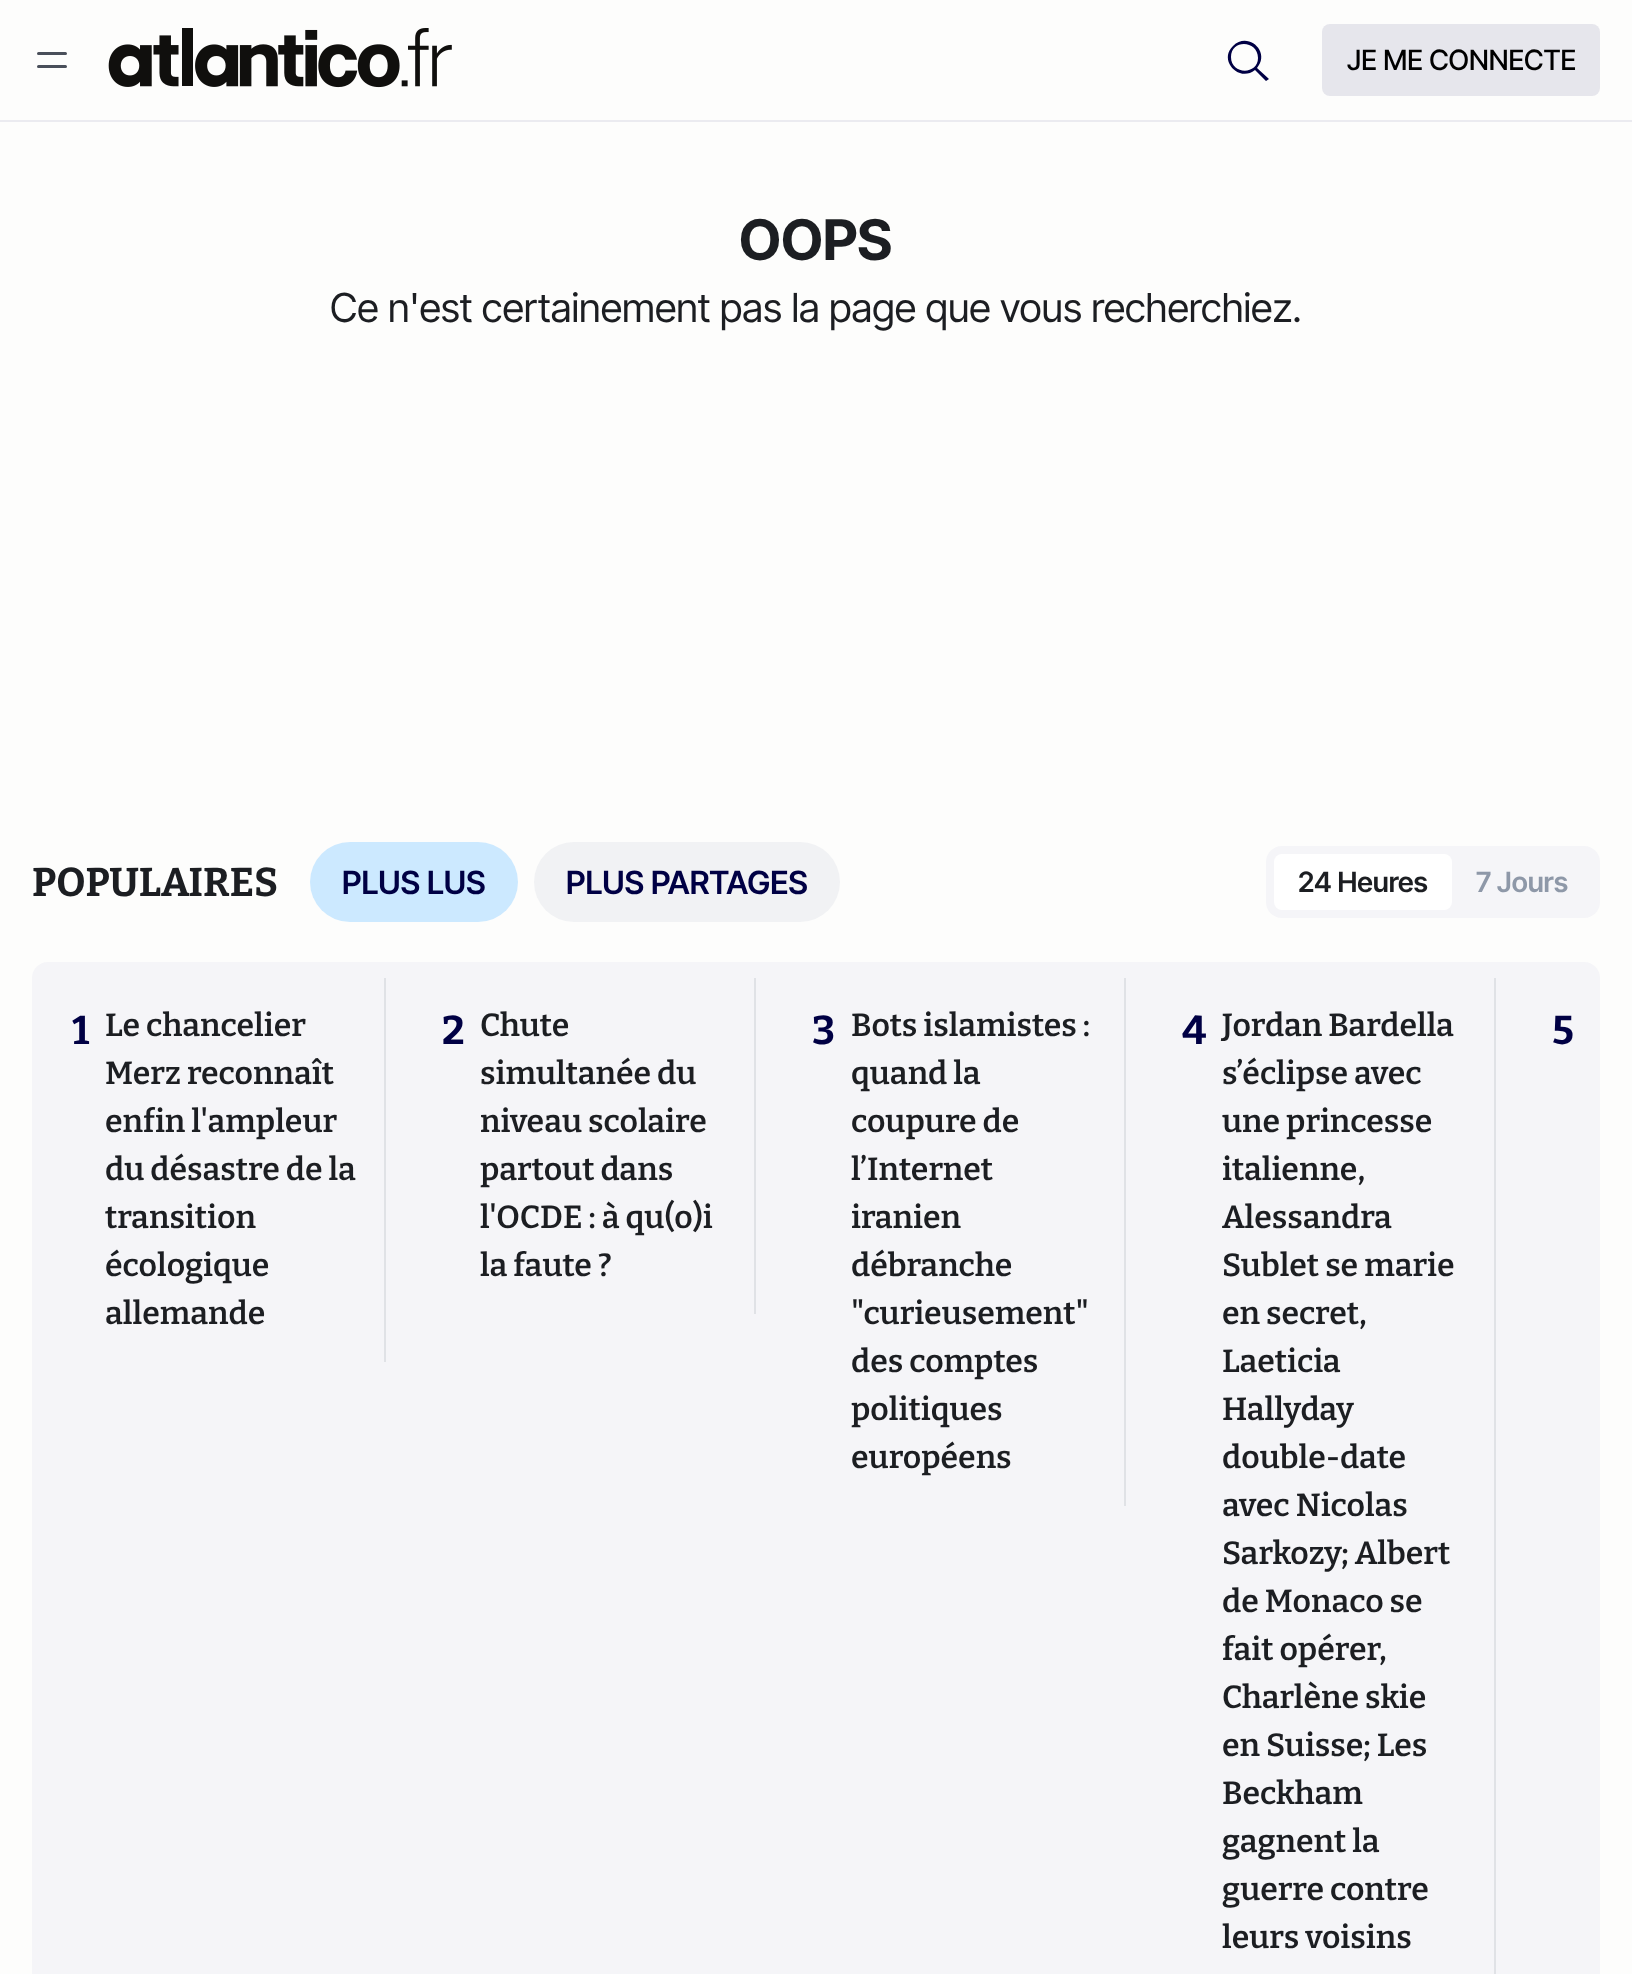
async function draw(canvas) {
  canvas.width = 1632
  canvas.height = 1974
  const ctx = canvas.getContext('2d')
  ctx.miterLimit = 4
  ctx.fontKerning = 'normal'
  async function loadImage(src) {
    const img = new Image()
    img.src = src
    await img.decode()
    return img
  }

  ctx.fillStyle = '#fdfdfc'
  ctx.fillRect(0, 0, 1632, 1974)
  ctx.fillStyle = '#ebebf0'
  ctx.fillRect(0, 120, 1632, 2)
  ctx.beginPath()
  ctx.moveTo(38.5, 53.5)
  ctx.lineTo(65.5, 53.5)
  ctx.moveTo(38.5, 66.5)
  ctx.lineTo(65.5, 66.5)
  ctx.strokeStyle = '#494f5a'
  ctx.lineWidth = 3
  ctx.lineCap = 'round'
  ctx.lineJoin = 'round'
  ctx.stroke()
  ctx.drawImage(await loadImage('image0.png'), 108, 28, 344, 60)
  ctx.fillStyle = '#004'
  ctx.beginPath()
  ctx.moveTo(1269, 79)
  ctx.lineTo(1257, 68)
  ctx.bezierCurveTo(1271, 52, 1248, 31, 1233, 46)
  ctx.bezierCurveTo(1218, 60, 1239, 83, 1255, 70)
  ctx.lineTo(1266, 81)
  ctx.closePath()
  ctx.moveTo(1231, 57)
  ctx.bezierCurveTo(1231, 39, 1258, 40, 1258, 58)
  ctx.bezierCurveTo(1258, 75, 1231, 75, 1231, 57)
  ctx.closePath()
  ctx.fill()
  ctx.fillStyle = '#e6e6ec'
  ctx.beginPath()
  ctx.roundRect(1322, 24, 278, 72, 8)
  ctx.fill()
  ctx.font = '500 28px Inter Tight'
  ctx.fillStyle = '#000'
  ctx.fillText('JE ME CONNECTE', 1347, 70)
  ctx.font = 'bold 56px Inter Tight'
  ctx.fillStyle = '#1c1e22'
  ctx.fillText('OOPS', 739, 260)
  ctx.font = '40px Inter Tight'
  ctx.fillText('Ce n\'est certainement pas la page que vous recherchiez.', 330, 322)
  ctx.font = 'bold 40px Bitter'
  ctx.fillText('POPULAIRES', 32, 896)
  ctx.fillStyle = '#cce9ff'
  ctx.beginPath()
  ctx.roundRect(310, 842, 208, 80, 40)
  ctx.fill()
  ctx.font = '600 32px Inter Tight'
  ctx.fillStyle = '#004'
  ctx.fillText('PLUS LUS', 342, 894)
  ctx.fillStyle = '#f1f2f4'
  ctx.beginPath()
  ctx.roundRect(534, 842, 306, 80, 40)
  ctx.fill()
  ctx.fillStyle = '#004'
  ctx.fillText('PLUS PARTAGES', 566, 894)
  ctx.fillStyle = '#f5f5f8'
  ctx.beginPath()
  ctx.roundRect(1266, 846, 334, 72, 16)
  ctx.fill()
  ctx.fillStyle = '#fff'
  ctx.beginPath()
  ctx.roundRect(1274, 854, 178, 56, 8)
  ctx.fill()
  ctx.font = '600 28px Inter Tight'
  ctx.fillStyle = '#1c1e22'
  ctx.fillText('24 Heures', 1298, 892)
  ctx.fillStyle = '#8e98a8'
  ctx.fillText('7 Jours', 1476, 892)
  ctx.fillStyle = '#f5f5f8'
  ctx.beginPath()
  ctx.roundRect(32, 962, 1568, 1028, 16)
  ctx.fill()
  ctx.fillStyle = '#e0e2e6'
  ctx.fillRect(384, 978, 2, 384)
  ctx.font = 'bold 40px Bitter'
  ctx.fillStyle = '#004'
  ctx.fillText('1', 72, 1044)
  ctx.font = '600 32px Bitter'
  ctx.fillStyle = '#1c1e22'
  ctx.fillText('Le chancelier', 105, 1036)
  ctx.fillText('Merz reconnaît', 105, 1084)
  ctx.fillText('enfin l\'ampleur', 105, 1132)
  ctx.fillText('du désastre de la', 105, 1180)
  ctx.fillText('transition', 105, 1228)
  ctx.fillText('écologique', 105, 1276)
  ctx.fillText('allemande', 105, 1324)
  ctx.fillStyle = '#e0e2e6'
  ctx.fillRect(754, 978, 2, 336)
  ctx.font = 'bold 40px Bitter'
  ctx.fillStyle = '#004'
  ctx.fillText('2', 442, 1044)
  ctx.font = '600 32px Bitter'
  ctx.fillStyle = '#1c1e22'
  ctx.fillText('Chute', 480, 1036)
  ctx.fillText('simultanée du', 480, 1084)
  ctx.fillText('niveau scolaire', 480, 1132)
  ctx.fillText('partout dans', 480, 1180)
  ctx.fillText('l\'OCDE : à qu(o)i', 480, 1228)
  ctx.fillText('la faute ?', 480, 1276)
  ctx.fillStyle = '#e0e2e6'
  ctx.fillRect(1124, 978, 2, 528)
  ctx.font = 'bold 40px Bitter'
  ctx.fillStyle = '#004'
  ctx.fillText('3', 812, 1044)
  ctx.font = '600 32px Bitter'
  ctx.fillStyle = '#1c1e22'
  ctx.fillText('Bots islamistes :', 851, 1036)
  ctx.fillText('quand la', 851, 1084)
  ctx.fillText('coupure de', 851, 1132)
  ctx.fillText('l’Internet', 851, 1180)
  ctx.fillText('iranien', 851, 1228)
  ctx.fillText('débranche', 851, 1276)
  ctx.fillText('"curieusement"', 851, 1324)
  ctx.fillText('des comptes', 851, 1372)
  ctx.fillText('politiques', 851, 1420)
  ctx.fillText('européens', 851, 1468)
  ctx.fillStyle = '#e0e2e6'
  ctx.fillRect(1494, 978, 2, 996)
  ctx.font = 'bold 40px Bitter'
  ctx.fillStyle = '#004'
  ctx.fillText('4', 1182, 1044)
  ctx.font = '600 32px Bitter'
  ctx.fillStyle = '#1c1e22'
  ctx.fillText('Jordan Bardella', 1222, 1036)
  ctx.fillText('s’éclipse avec', 1222, 1084)
  ctx.fillText('une princesse', 1222, 1132)
  ctx.fillText('italienne,', 1222, 1180)
  ctx.fillText('Alessandra', 1222, 1228)
  ctx.fillText('Sublet se marie', 1222, 1276)
  ctx.fillText('en secret,', 1222, 1324)
  ctx.fillText('Laeticia', 1222, 1372)
  ctx.fillText('Hallyday', 1222, 1420)
  ctx.fillText('double-date', 1222, 1468)
  ctx.fillText('avec Nicolas', 1222, 1516)
  ctx.fillText('Sarkozy; Albert', 1222, 1564)
  ctx.fillText('de Monaco se', 1222, 1612)
  ctx.fillText('fait opérer,', 1222, 1660)
  ctx.fillText('Charlène skie', 1222, 1708)
  ctx.fillText('en Suisse; Les', 1222, 1756)
  ctx.fillText('Beckham', 1222, 1804)
  ctx.fillText('gagnent la', 1222, 1852)
  ctx.fillText('guerre contre', 1222, 1900)
  ctx.fillText('leurs voisins', 1222, 1948)
  ctx.font = 'bold 40px Bitter'
  ctx.fillStyle = '#004'
  ctx.fillText('5', 1552, 1044)
}

draw(document.querySelector('canvas'))
